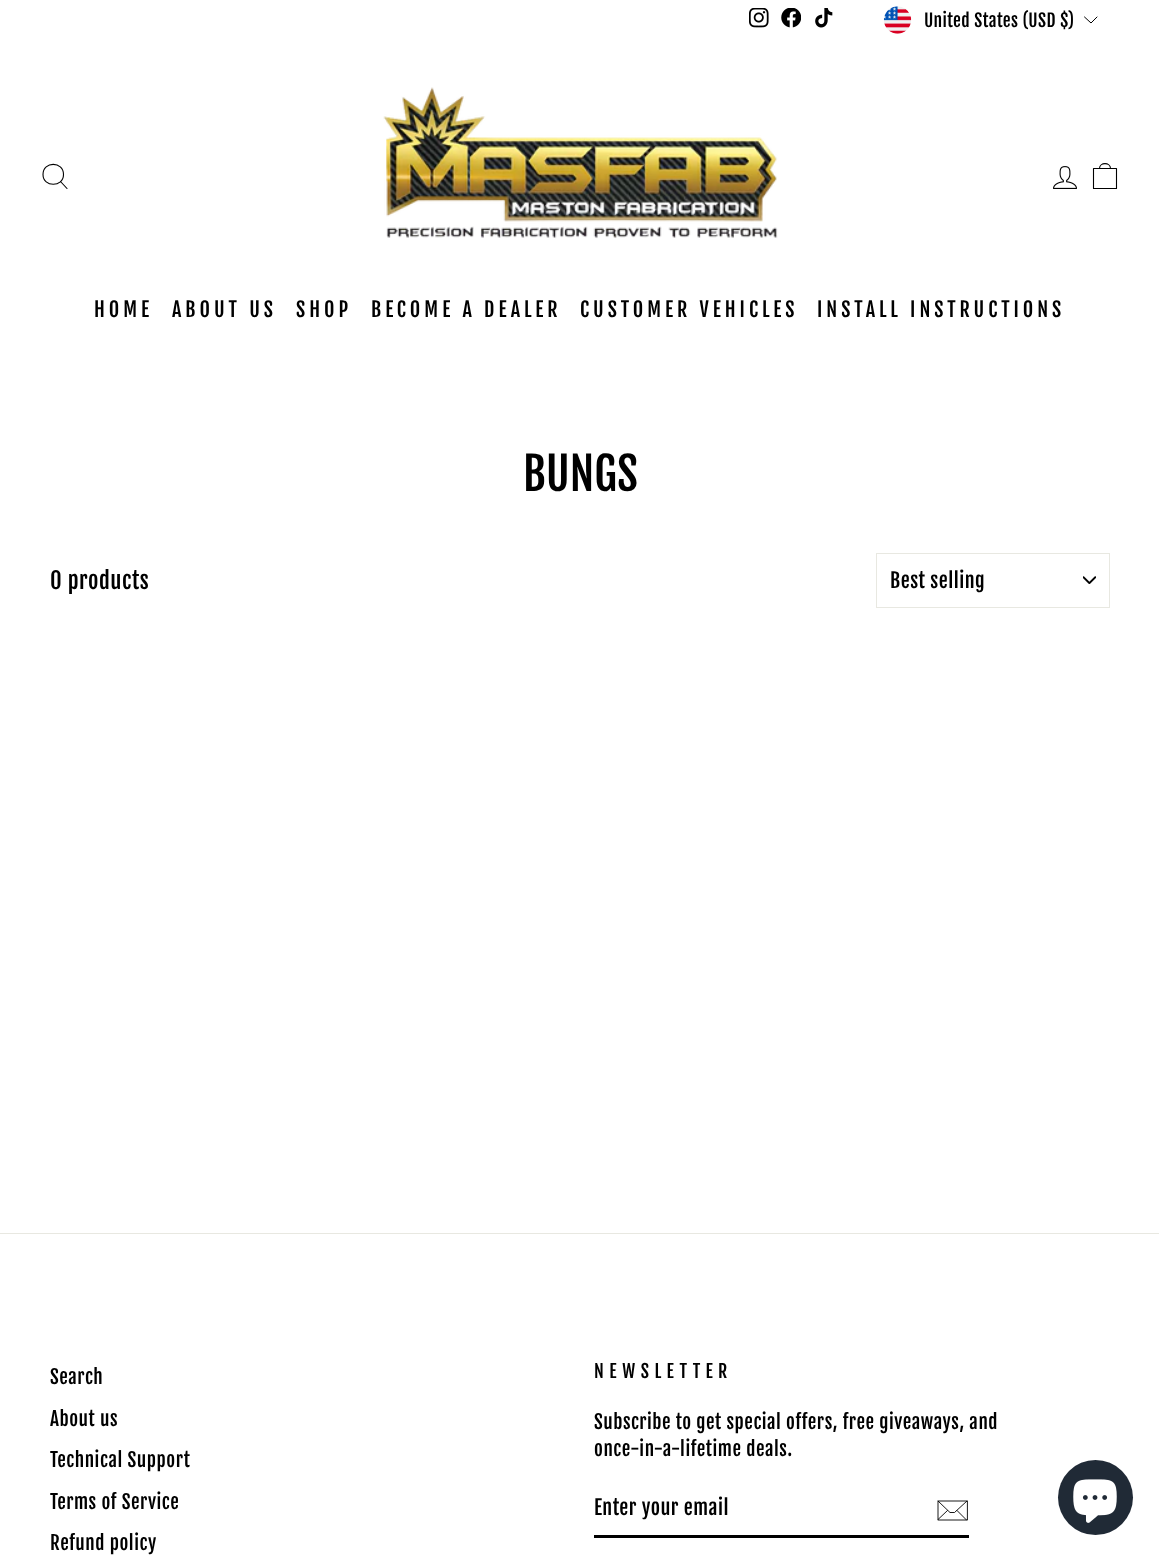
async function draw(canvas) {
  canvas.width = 1159
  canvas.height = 1561
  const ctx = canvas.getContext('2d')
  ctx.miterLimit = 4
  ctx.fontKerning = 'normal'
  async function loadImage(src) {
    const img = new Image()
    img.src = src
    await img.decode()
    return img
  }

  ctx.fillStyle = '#fff'
  ctx.fillRect(0, 0, 1159, 1561)
  ctx.drawImage(await loadImage('image0.png'), 749, 8, 20, 20)
  ctx.drawImage(await loadImage('image1.png'), 781, 8, 20, 20)
  ctx.drawImage(await loadImage('image2.png'), 815, 8, 18, 20)
  ctx.drawImage(await loadImage('image3.png'), 883, 6, 29, 28)
  ctx.letterSpacing = '0.4px'
  ctx.font = '17.5px Fjalla One'
  ctx.fillStyle = '#000'
  ctx.fillText('United States (USD $)', 924, 27)
  ctx.beginPath()
  ctx.moveTo(1084.5, 17)
  ctx.lineTo(1091, 23)
  ctx.lineTo(1097, 17)
  ctx.strokeStyle = '#000'
  ctx.lineCap = 'round'
  ctx.lineJoin = 'round'
  ctx.stroke()
  ctx.fillStyle = '#00000033'
  ctx.filter = 'blur(0.5px)'
  ctx.beginPath()
  ctx.rect(0, 40, 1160, 318)
  ctx.fill()
  ctx.filter = 'none'
  ctx.fillStyle = '#fff'
  ctx.fillRect(0, 40, 1159, 318)
  ctx.beginPath()
  ctx.moveTo(63.5, 174.5)
  ctx.bezierCurveTo(63.5, 187.5, 43, 187.5, 43, 174.5)
  ctx.bezierCurveTo(43, 161, 63.5, 161, 63.5, 174.5)
  ctx.closePath()
  ctx.moveTo(67, 188.5)
  ctx.lineTo(60.5, 181.5)
  ctx.lineWidth = 1.1
  ctx.stroke()
  ctx.drawImage(await loadImage('image4.png'), 383, 87, 395, 152)
  ctx.drawImage(await loadImage('image5.png'), 1053, 166, 24, 23)
  ctx.beginPath()
  ctx.moveTo(1093.5, 168.5)
  ctx.lineTo(1116.5, 168.5)
  ctx.lineTo(1116.5, 188.5)
  ctx.lineTo(1093.5, 188.5)
  ctx.closePath()
  ctx.moveTo(1099.5, 168.5)
  ctx.bezierCurveTo(1099.5, 162, 1110.5, 162, 1110.5, 168.5)
  ctx.stroke()
  ctx.letterSpacing = '4px'
  ctx.font = '20px Fjalla One'
  ctx.fillStyle = '#000'
  ctx.fillText('HOME', 94, 317)
  ctx.fillText('ABOUT US', 172, 317)
  ctx.fillText('SHOP', 296, 317)
  ctx.fillText('BECOME A DEALER', 371, 317)
  ctx.fillText('CUSTOMER VEHICLES', 580, 317)
  ctx.fillText('INSTALL INSTRUCTIONS', 817, 317)
  ctx.letterSpacing = '0px'
  ctx.font = '45px Fjalla One'
  ctx.fillText('BUNGS', 523, 491)
  ctx.letterSpacing = '0.55px'
  ctx.font = '22.5px Fjalla One'
  ctx.fillText('0 products', 50, 589)
  ctx.drawImage(await loadImage('image6.png'), 1083, 576, 13, 8)
  ctx.strokeStyle = '#e8e8e1'
  ctx.lineWidth = 1
  ctx.lineJoin = 'miter'
  ctx.strokeRect(876.5, 553.5, 233, 54)
  ctx.letterSpacing = '0.5px'
  ctx.font = '20px Fjalla One'
  ctx.fillText('Best selling', 890, 588)
  ctx.fillStyle = '#e8e8e1'
  ctx.fillRect(0, 1233, 1159, 1)
  ctx.letterSpacing = '0.55px'
  ctx.font = '19.1px Fjalla One'
  ctx.fillStyle = '#000'
  ctx.fillText('Search', 50, 1384)
  ctx.fillText('About us', 50, 1426)
  ctx.fillText('Technical Support', 50, 1467)
  ctx.fillText('Terms of Service', 50, 1509)
  ctx.fillText('Refund policy', 50, 1550)
  ctx.letterSpacing = '5.5px'
  ctx.font = '18px Fjalla One'
  ctx.fillText('NEWSLETTER', 594, 1378)
  ctx.letterSpacing = '0.55px'
  ctx.font = '19.1px Fjalla One'
  ctx.fillText('Subscribe to get special offers, free giveaways, and', 594, 1429)
  ctx.fillText('once-in-a-lifetime deals.', 594, 1456)
  ctx.fillRect(594, 1535, 375, 3)
  ctx.letterSpacing = '0.5px'
  ctx.font = '20px Fjalla One'
  ctx.fillText('Enter your email', 594, 1515)
  ctx.beginPath()
  ctx.moveTo(967, 1520)
  ctx.lineTo(938, 1520)
  ctx.lineTo(938, 1501)
  ctx.lineTo(967, 1501)
  ctx.closePath()
  ctx.moveTo(938, 1501)
  ctx.lineTo(950, 1512.5)
  ctx.lineTo(954.5, 1512.5)
  ctx.lineTo(967, 1501)
  ctx.moveTo(947.5, 1510.5)
  ctx.lineTo(938, 1519.5)
  ctx.moveTo(966.5, 1520)
  ctx.lineTo(957, 1510.5)
  ctx.strokeStyle = '#000'
  ctx.lineWidth = 0.9
  ctx.lineJoin = 'round'
  ctx.stroke()
  ctx.fillStyle = '#202a36'
  ctx.beginPath()
  ctx.arc(1095.5, 1497.5, 37.5, 0, 2 * Math.PI)
  ctx.fill()
  ctx.drawImage(await loadImage('image7.png'), 1073, 1479, 44, 44)
}

draw(document.querySelector('canvas'))
